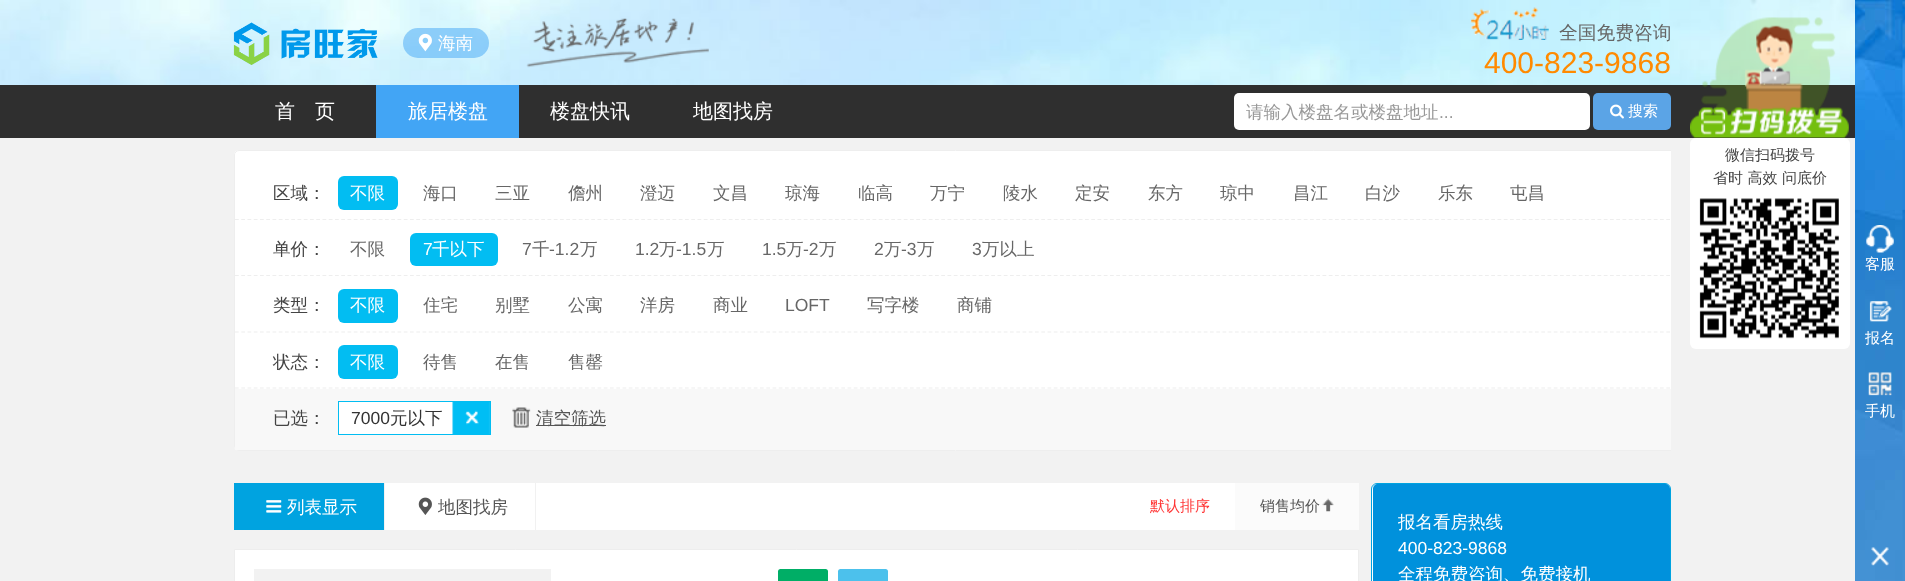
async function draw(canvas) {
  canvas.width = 1905
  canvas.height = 581
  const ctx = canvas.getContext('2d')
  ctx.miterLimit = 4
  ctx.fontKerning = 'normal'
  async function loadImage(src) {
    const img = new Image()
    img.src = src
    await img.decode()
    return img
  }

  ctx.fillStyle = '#f2f2f2'
  ctx.fillRect(0, 0, 1905, 581)
  ctx.drawImage(await loadImage('image0.png'), 0, 0, 1855, 85)
  ctx.drawImage(await loadImage('image1.png'), 233, 22, 145, 43)
  ctx.fillStyle = '#42a5f580'
  ctx.beginPath()
  ctx.roundRect(403, 28, 86, 30, 15)
  ctx.fill()
  ctx.drawImage(await loadImage('image2.png'), 418, 33, 14, 19)
  ctx.font = '500 17.5px WenQuanYi Zen Hei'
  ctx.fillStyle = '#fff'
  ctx.fillText('海南', 438, 49)
  ctx.drawImage(await loadImage('image3.png'), 526, 18, 183, 50)
  ctx.drawImage(await loadImage('image4.png'), 1471, 7, 78, 33)
  ctx.font = '500 18.75px WenQuanYi Zen Hei'
  ctx.fillStyle = '#666'
  ctx.fillText('全国免费咨询', 1559, 39)
  ctx.font = '30px Liberation Sans'
  ctx.fillStyle = '#ff8a00'
  ctx.fillText('400-823-9868', 1484, 73)
  ctx.fillStyle = '#2f2f2f'
  ctx.fillRect(0, 85, 1855, 53)
  ctx.font = '500 20px WenQuanYi Zen Hei'
  ctx.fillStyle = '#fff'
  ctx.fillText('首　页', 275, 118)
  ctx.fillStyle = '#42a5f5'
  ctx.fillRect(376, 85, 143, 53)
  ctx.fillStyle = '#fff'
  ctx.fillText('旅居楼盘', 408, 118)
  ctx.fillText('楼盘快讯', 550, 118)
  ctx.fillText('地图找房', 693, 118)
  ctx.beginPath()
  ctx.roundRect(1234, 93, 356, 37, 5)
  ctx.fill()
  ctx.font = '500 17.5px WenQuanYi Zen Hei'
  ctx.fillStyle = '#999'
  ctx.fillText('请输入楼盘名或楼盘地址', 1246, 118)
  ctx.font = '17.5px Liberation Sans'
  ctx.fillText('...', 1439, 118)
  ctx.fillStyle = '#5ba4e6'
  ctx.beginPath()
  ctx.roundRect(1593, 93, 78, 37, 5)
  ctx.fill()
  ctx.drawImage(await loadImage('image5.png'), 1610, 104, 14, 15)
  ctx.font = '500 15px WenQuanYi Zen Hei'
  ctx.fillStyle = '#fff'
  ctx.fillText('搜索', 1628, 116)
  ctx.drawImage(await loadImage('image6.png'), 1690, 17, 159, 121)
  ctx.beginPath()
  ctx.roundRect(234, 150, 1437, 301, [5, 0, 0, 5])
  ctx.fill()
  ctx.save()
  ctx.beginPath()
  ctx.rect(234, 138, 1437, 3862)
  ctx.clip()
  ctx.beginPath()
  ctx.roundRect(234.5, 150.5, 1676, 300, 4.5)
  ctx.strokeStyle = '#eee'
  ctx.stroke()
  ctx.restore()
  ctx.beginPath()
  ctx.roundRect(1690, 138, 160, 211, 6)
  ctx.fill()
  ctx.fillStyle = '#444'
  ctx.fillText('微信扫码拨号', 1725, 160)
  ctx.fillText('省时 高效 问底价', 1713, 183)
  ctx.drawImage(await loadImage('image7.png'), 1699, 198, 140, 141)
  ctx.save()
  ctx.beginPath()
  ctx.rect(234, 138, 1437, 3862)
  ctx.clip()
  ctx.beginPath()
  ctx.moveTo(235, 219.5)
  ctx.lineTo(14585, 219.5)
  ctx.strokeStyle = '#eee'
  ctx.lineWidth = 1.2
  ctx.setLineDash([3.75, 2.5])
  ctx.stroke()
  ctx.restore()
  ctx.font = '500 17.5px WenQuanYi Zen Hei'
  ctx.fillText('区域：', 273, 199)
  ctx.fillStyle = '#02bdf2'
  ctx.beginPath()
  ctx.roundRect(338, 176, 60, 34, 6)
  ctx.fill()
  ctx.fillStyle = '#fff'
  ctx.fillText('不限', 350, 199)
  ctx.fillStyle = '#666'
  ctx.fillText('海口', 423, 199)
  ctx.fillText('三亚', 495, 199)
  ctx.fillText('儋州', 568, 199)
  ctx.fillText('澄迈', 640, 199)
  ctx.fillText('文昌', 713, 199)
  ctx.fillText('琼海', 785, 199)
  ctx.fillText('临高', 858, 199)
  ctx.fillText('万宁', 930, 199)
  ctx.fillText('陵水', 1003, 199)
  ctx.fillText('定安', 1075, 199)
  ctx.fillText('东方', 1148, 199)
  ctx.fillText('琼中', 1220, 199)
  ctx.fillText('昌江', 1293, 199)
  ctx.fillText('白沙', 1365, 199)
  ctx.fillText('乐东', 1438, 199)
  ctx.fillText('屯昌', 1510, 199)
  ctx.save()
  ctx.beginPath()
  ctx.rect(234, 138, 1437, 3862)
  ctx.clip()
  ctx.beginPath()
  ctx.moveTo(235, 275.5)
  ctx.lineTo(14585, 275.5)
  ctx.strokeStyle = '#eee'
  ctx.lineWidth = 1.2
  ctx.setLineDash([3.75, 2.5])
  ctx.stroke()
  ctx.restore()
  ctx.fillStyle = '#444'
  ctx.fillText('单价：', 273, 255)
  ctx.fillStyle = '#666'
  ctx.fillText('不限', 350, 255)
  ctx.fillStyle = '#02bdf2'
  ctx.beginPath()
  ctx.roundRect(410, 233, 88, 33, 6)
  ctx.fill()
  ctx.font = '17.5px Liberation Sans'
  ctx.fillStyle = '#fff'
  ctx.fillText('7', 423, 255)
  ctx.font = '500 17.5px WenQuanYi Zen Hei'
  ctx.fillText('千以下', 432, 255)
  ctx.font = '17.5px Liberation Sans'
  ctx.fillStyle = '#666'
  ctx.fillText('7', 522, 255)
  ctx.font = '500 17.5px WenQuanYi Zen Hei'
  ctx.fillText('千', 532, 255)
  ctx.font = '17.5px Liberation Sans'
  ctx.fillText('-1.2', 549, 255)
  ctx.font = '500 17.5px WenQuanYi Zen Hei'
  ctx.fillText('万', 580, 255)
  ctx.font = '17.5px Liberation Sans'
  ctx.fillText('1.2', 635, 255)
  ctx.font = '500 17.5px WenQuanYi Zen Hei'
  ctx.fillText('万', 659, 255)
  ctx.font = '17.5px Liberation Sans'
  ctx.fillText('-1.5', 676, 255)
  ctx.font = '500 17.5px WenQuanYi Zen Hei'
  ctx.fillText('万', 707, 255)
  ctx.font = '17.5px Liberation Sans'
  ctx.fillText('1.5', 762, 255)
  ctx.font = '500 17.5px WenQuanYi Zen Hei'
  ctx.fillText('万', 786, 255)
  ctx.font = '17.5px Liberation Sans'
  ctx.fillText('-2', 803, 255)
  ctx.font = '500 17.5px WenQuanYi Zen Hei'
  ctx.fillText('万', 819, 255)
  ctx.font = '17.5px Liberation Sans'
  ctx.fillText('2', 874, 255)
  ctx.font = '500 17.5px WenQuanYi Zen Hei'
  ctx.fillText('万', 884, 255)
  ctx.font = '17.5px Liberation Sans'
  ctx.fillText('-3', 901, 255)
  ctx.font = '500 17.5px WenQuanYi Zen Hei'
  ctx.fillText('万', 917, 255)
  ctx.font = '17.5px Liberation Sans'
  ctx.fillText('3', 972, 255)
  ctx.font = '500 17.5px WenQuanYi Zen Hei'
  ctx.fillText('万以上', 982, 255)
  ctx.save()
  ctx.beginPath()
  ctx.rect(234, 138, 1437, 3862)
  ctx.clip()
  ctx.beginPath()
  ctx.moveTo(235, 332)
  ctx.lineTo(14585, 332)
  ctx.strokeStyle = '#eee'
  ctx.lineWidth = 1.2
  ctx.setLineDash([3.75, 2.5])
  ctx.stroke()
  ctx.restore()
  ctx.fillStyle = '#444'
  ctx.fillText('类型：', 273, 311)
  ctx.fillStyle = '#02bdf2'
  ctx.beginPath()
  ctx.roundRect(338, 289, 60, 34, 6)
  ctx.fill()
  ctx.fillStyle = '#fff'
  ctx.fillText('不限', 350, 311)
  ctx.fillStyle = '#666'
  ctx.fillText('住宅', 423, 311)
  ctx.fillText('别墅', 495, 311)
  ctx.fillText('公寓', 568, 311)
  ctx.fillText('洋房', 640, 311)
  ctx.fillText('商业', 713, 311)
  ctx.font = '17.5px Liberation Sans'
  ctx.fillText('LOFT', 785, 311)
  ctx.font = '500 17.5px WenQuanYi Zen Hei'
  ctx.fillText('写字楼', 867, 311)
  ctx.fillText('商铺', 957, 311)
  ctx.save()
  ctx.beginPath()
  ctx.rect(234, 138, 1437, 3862)
  ctx.clip()
  ctx.beginPath()
  ctx.moveTo(235, 388)
  ctx.lineTo(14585, 388)
  ctx.strokeStyle = '#eee'
  ctx.lineWidth = 1.2
  ctx.setLineDash([3.75, 2.5])
  ctx.stroke()
  ctx.restore()
  ctx.fillStyle = '#444'
  ctx.fillText('状态：', 273, 368)
  ctx.fillStyle = '#02bdf2'
  ctx.beginPath()
  ctx.roundRect(338, 345, 60, 34, 6)
  ctx.fill()
  ctx.fillStyle = '#fff'
  ctx.fillText('不限', 350, 368)
  ctx.fillStyle = '#666'
  ctx.fillText('待售', 423, 368)
  ctx.fillText('在售', 495, 368)
  ctx.fillText('售罄', 568, 368)
  ctx.fillStyle = '#f8f8f8'
  ctx.fillRect(235, 389, 1436, 61)
  ctx.fillStyle = '#444'
  ctx.fillText('已选：', 273, 424)
  ctx.fillStyle = '#fff'
  ctx.fillRect(339, 402, 114, 32)
  ctx.drawImage(await loadImage('image8.png'), 452, 402, 38, 32)
  ctx.strokeStyle = '#02bdf2'
  ctx.strokeRect(338.5, 401.5, 152, 33)
  ctx.font = '17.5px Liberation Sans'
  ctx.fillStyle = '#333'
  ctx.fillText('7000', 351, 424)
  ctx.font = '500 17.5px WenQuanYi Zen Hei'
  ctx.fillText('元以下', 390, 424)
  ctx.drawImage(await loadImage('image9.png'), 512, 407, 19, 21)
  ctx.fillStyle = '#555'
  ctx.fillRect(536, 425, 70, 1)
  ctx.fillText('清空筛选', 536, 424)
  ctx.fillStyle = '#fff'
  ctx.fillRect(385, 483, 850, 47)
  ctx.fillStyle = '#00a3e0'
  ctx.fillRect(234, 483, 150, 47)
  ctx.drawImage(await loadImage('image10.png'), 266, 500, 16, 13)
  ctx.fillStyle = '#fff'
  ctx.fillText('列表显示', 287, 513)
  ctx.fillStyle = '#f1f1f1'
  ctx.fillRect(535, 483, 1, 47)
  ctx.drawImage(await loadImage('image11.png'), 418, 497, 14, 18)
  ctx.fillStyle = '#555'
  ctx.fillText('地图找房', 438, 513)
  ctx.font = '500 15px WenQuanYi Zen Hei'
  ctx.fillStyle = '#f33'
  ctx.fillText('默认排序', 1150, 511)
  ctx.fillStyle = '#fbfbfb'
  ctx.fillRect(1235, 483, 124, 47)
  ctx.fillStyle = '#555'
  ctx.fillText('销售均价', 1260, 511)
  ctx.drawImage(await loadImage('image12.png'), 1322, 498, 12, 14)
  ctx.fillStyle = '#fff'
  ctx.beginPath()
  ctx.rect(234.5, 549.5, 1124, 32)
  ctx.fill()
  ctx.strokeStyle = '#ededed'
  ctx.stroke()
  ctx.fillStyle = '#f2f2f2'
  ctx.fillRect(254, 569, 297, 12)
  ctx.fillStyle = '#00ae66'
  ctx.beginPath()
  ctx.roundRect(778, 569, 50, 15, 2.5)
  ctx.fill()
  ctx.fillStyle = '#4cc1ec'
  ctx.beginPath()
  ctx.roundRect(838, 569, 50, 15, 2.5)
  ctx.fill()
  ctx.fillStyle = '#fff'
  ctx.beginPath()
  ctx.roundRect(1371.5, 483.5, 299, 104, 5.5)
  ctx.fill()
  ctx.strokeStyle = '#00a3e0'
  ctx.stroke()
  ctx.fillStyle = '#0091dc'
  ctx.beginPath()
  ctx.moveTo(1378, 484)
  ctx.lineTo(1665, 484)
  ctx.bezierCurveTo(1668, 484, 1670, 486, 1670, 489)
  ctx.lineTo(1670, 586)
  ctx.lineTo(1373, 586)
  ctx.lineTo(1373, 489)
  ctx.bezierCurveTo(1373, 486, 1375, 484, 1378, 484)
  ctx.closePath()
  ctx.fill()
  ctx.font = '500 17.5px WenQuanYi Zen Hei'
  ctx.fillStyle = '#fff'
  ctx.fillText('报名看房热线', 1398, 528)
  ctx.font = '17.5px Liberation Sans'
  ctx.fillText('400-823-9868', 1398, 554)
  ctx.font = '500 17.5px WenQuanYi Zen Hei'
  ctx.fillText('全程免费咨询、免费接机', 1398, 580)
  ctx.drawImage(await loadImage('image13.png'), 1855, 0, 50, 581)
  ctx.drawImage(await loadImage('image14.png'), 1866, 225, 28, 28)
  ctx.font = '500 15px WenQuanYi Zen Hei'
  ctx.fillText('客服', 1865, 269)
  ctx.drawImage(await loadImage('image15.png'), 1869, 301, 23, 21)
  ctx.fillText('报名', 1865, 343)
  ctx.drawImage(await loadImage('image16.png'), 1868, 372, 24, 24)
  ctx.fillText('手机', 1865, 416)
  ctx.drawImage(await loadImage('image17.png'), 1871, 547, 18, 19)
}

draw(document.querySelector('canvas'))
